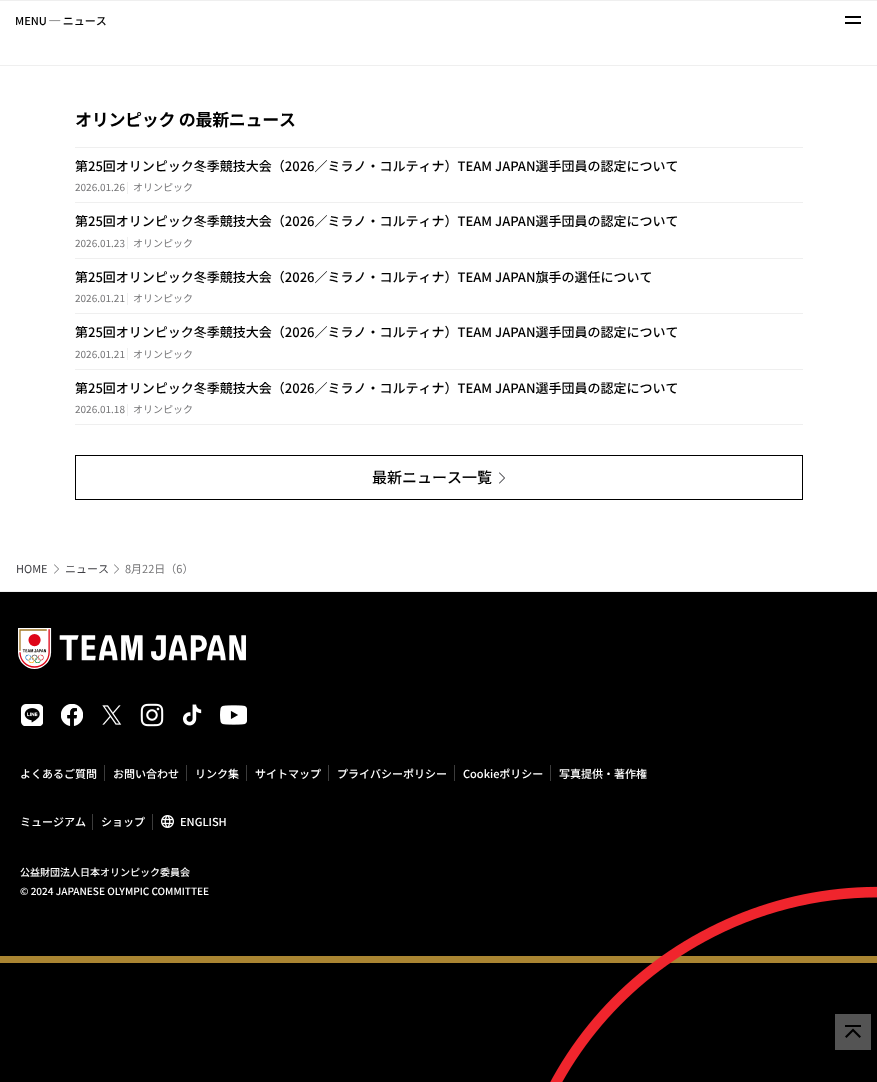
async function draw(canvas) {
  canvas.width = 877
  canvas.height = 1082
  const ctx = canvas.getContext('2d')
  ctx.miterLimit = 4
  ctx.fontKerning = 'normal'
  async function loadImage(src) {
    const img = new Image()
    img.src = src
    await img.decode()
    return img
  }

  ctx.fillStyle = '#fff'
  ctx.fillRect(0, 0, 877, 1082)
  ctx.fillStyle = '#efefef'
  ctx.fillRect(0, 0, 877, 1)
  ctx.font = '500 11px Noto Sans JP'
  ctx.fillStyle = '#000'
  ctx.fillText('MENU ─ ニュース', 15, 25)
  ctx.fillRect(845, 16, 16, 2)
  ctx.fillRect(845, 22, 16, 2)
  ctx.fillStyle = '#efefef'
  ctx.fillRect(0, 65, 877, 1)
  ctx.letterSpacing = '-0.3px'
  ctx.font = 'bold 17px Noto Sans JP'
  ctx.fillStyle = '#000'
  ctx.fillText('オリンピック の最新ニュース', 75, 126)
  ctx.fillStyle = '#efefef'
  ctx.fillRect(75, 147, 728, 1)
  ctx.letterSpacing = '0px'
  ctx.font = '500 13px Noto Sans JP'
  ctx.fillStyle = '#000'
  ctx.fillText('第25回オリンピック冬季競技大会（2026／ミラノ・コルティナ）TEAM JAPAN選手団員の認定について', 75, 171)
  ctx.font = '10px Noto Sans JP'
  ctx.fillStyle = '#757577'
  ctx.fillText('2026.01.26', 75, 191)
  ctx.fillStyle = '#efefef'
  ctx.fillRect(127, 182, 1, 12)
  ctx.fillStyle = '#757577'
  ctx.fillText('オリンピック', 133, 191)
  ctx.fillStyle = '#efefef'
  ctx.fillRect(75, 202, 728, 1)
  ctx.font = '500 13px Noto Sans JP'
  ctx.fillStyle = '#000'
  ctx.fillText('第25回オリンピック冬季競技大会（2026／ミラノ・コルティナ）TEAM JAPAN選手団員の認定について', 75, 226)
  ctx.font = '10px Noto Sans JP'
  ctx.fillStyle = '#757577'
  ctx.fillText('2026.01.23', 75, 247)
  ctx.fillStyle = '#efefef'
  ctx.fillRect(127, 237, 1, 12)
  ctx.fillStyle = '#757577'
  ctx.fillText('オリンピック', 133, 247)
  ctx.fillStyle = '#efefef'
  ctx.fillRect(75, 258, 728, 1)
  ctx.font = '500 13px Noto Sans JP'
  ctx.fillStyle = '#000'
  ctx.fillText('第25回オリンピック冬季競技大会（2026／ミラノ・コルティナ）TEAM JAPAN旗手の選任について', 75, 282)
  ctx.font = '10px Noto Sans JP'
  ctx.fillStyle = '#757577'
  ctx.fillText('2026.01.21', 75, 302)
  ctx.fillStyle = '#efefef'
  ctx.fillRect(127, 293, 1, 12)
  ctx.fillStyle = '#757577'
  ctx.fillText('オリンピック', 133, 302)
  ctx.fillStyle = '#efefef'
  ctx.fillRect(75, 313, 728, 1)
  ctx.font = '500 13px Noto Sans JP'
  ctx.fillStyle = '#000'
  ctx.fillText('第25回オリンピック冬季競技大会（2026／ミラノ・コルティナ）TEAM JAPAN選手団員の認定について', 75, 337)
  ctx.font = '10px Noto Sans JP'
  ctx.fillStyle = '#757577'
  ctx.fillText('2026.01.21', 75, 358)
  ctx.fillStyle = '#efefef'
  ctx.fillRect(127, 348, 1, 12)
  ctx.fillStyle = '#757577'
  ctx.fillText('オリンピック', 133, 358)
  ctx.fillStyle = '#efefef'
  ctx.fillRect(75, 369, 728, 1)
  ctx.fillRect(75, 424, 728, 1)
  ctx.font = '500 13px Noto Sans JP'
  ctx.fillStyle = '#000'
  ctx.fillText('第25回オリンピック冬季競技大会（2026／ミラノ・コルティナ）TEAM JAPAN選手団員の認定について', 75, 393)
  ctx.font = '10px Noto Sans JP'
  ctx.fillStyle = '#757577'
  ctx.fillText('2026.01.18', 75, 413)
  ctx.fillStyle = '#efefef'
  ctx.fillRect(127, 404, 1, 12)
  ctx.fillStyle = '#757577'
  ctx.fillText('オリンピック', 133, 413)
  ctx.strokeStyle = '#000'
  ctx.strokeRect(75.5, 455.5, 727, 44)
  ctx.font = '500 15px Noto Sans JP'
  ctx.fillStyle = '#000'
  ctx.fillText('最新ニュース一覧', 372, 483)
  ctx.drawImage(await loadImage('image0.png'), 499, 472, 6, 12)
  ctx.font = '11px Noto Sans JP'
  ctx.fillStyle = '#404045'
  ctx.fillText('HOME', 16, 573)
  ctx.drawImage(await loadImage('image1.png'), 54, 564, 5, 10)
  ctx.fillText('ニュース', 65, 573)
  ctx.drawImage(await loadImage('image1.png'), 114, 564, 5, 10)
  ctx.fillStyle = '#757577'
  ctx.fillText('8月22日（6）', 125, 573)
  ctx.fillStyle = '#000'
  ctx.fillRect(0, 592, 877, 490)
  ctx.fillStyle = '#efefef'
  ctx.fillRect(0, 591, 877, 1)
  ctx.drawImage(await loadImage('image2.png'), 18, 628, 228, 41)
  ctx.drawImage(await loadImage('image3.png'), 21, 704, 22, 22)
  ctx.drawImage(await loadImage('image4.png'), 61, 704, 22, 22)
  ctx.drawImage(await loadImage('image5.png'), 102, 705, 20, 20)
  ctx.drawImage(await loadImage('image6.png'), 140, 703, 24, 24)
  ctx.drawImage(await loadImage('image7.png'), 182, 704, 20, 22)
  ctx.drawImage(await loadImage('image8.png'), 220, 705, 27, 20)
  ctx.font = '500 11px Noto Sans JP'
  ctx.fillStyle = '#fff'
  ctx.fillText('よくあるご質問', 20, 778)
  ctx.fillStyle = '#3c3c3c'
  ctx.fillRect(104, 765, 1, 16)
  ctx.fillStyle = '#fff'
  ctx.fillText('お問い合わせ', 113, 778)
  ctx.fillStyle = '#3c3c3c'
  ctx.fillRect(186, 765, 1, 16)
  ctx.fillStyle = '#fff'
  ctx.fillText('リンク集', 195, 778)
  ctx.fillStyle = '#3c3c3c'
  ctx.fillRect(246, 765, 1, 16)
  ctx.fillStyle = '#fff'
  ctx.fillText('サイトマップ', 255, 778)
  ctx.fillStyle = '#3c3c3c'
  ctx.fillRect(328, 765, 1, 16)
  ctx.fillStyle = '#fff'
  ctx.fillText('プライバシーポリシー', 337, 778)
  ctx.fillStyle = '#3c3c3c'
  ctx.fillRect(454, 765, 1, 16)
  ctx.fillStyle = '#fff'
  ctx.fillText('Cookieポリシー', 463, 778)
  ctx.fillStyle = '#3c3c3c'
  ctx.fillRect(550, 765, 1, 16)
  ctx.fillStyle = '#fff'
  ctx.fillText('写真提供・著作権', 559, 778)
  ctx.fillText('ミュージアム', 20, 826)
  ctx.fillStyle = '#3c3c3c'
  ctx.fillRect(92, 814, 1, 16)
  ctx.fillStyle = '#fff'
  ctx.fillText('ショップ', 101, 826)
  ctx.fillStyle = '#3c3c3c'
  ctx.fillRect(152, 814, 1, 16)
  ctx.drawImage(await loadImage('image9.png'), 161, 815, 13, 13)
  ctx.fillStyle = '#fff'
  ctx.fillText('ENGLISH', 180, 826)
  ctx.font = '500 10px Noto Sans JP'
  ctx.fillText('公益財団法人日本オリンピック委員会', 20, 876)
  ctx.drawImage(await loadImage('image10.png'), 0, 886, 877, 196)
  ctx.fillText('© 2024 JAPANESE OLYMPIC COMMITTEE', 20, 895)
  ctx.fillStyle = '#545454'
  ctx.fillRect(835, 1014, 36, 36)
  ctx.drawImage(await loadImage('image11.png'), 845, 1025, 16, 13)
}

draw(document.querySelector('canvas'))
